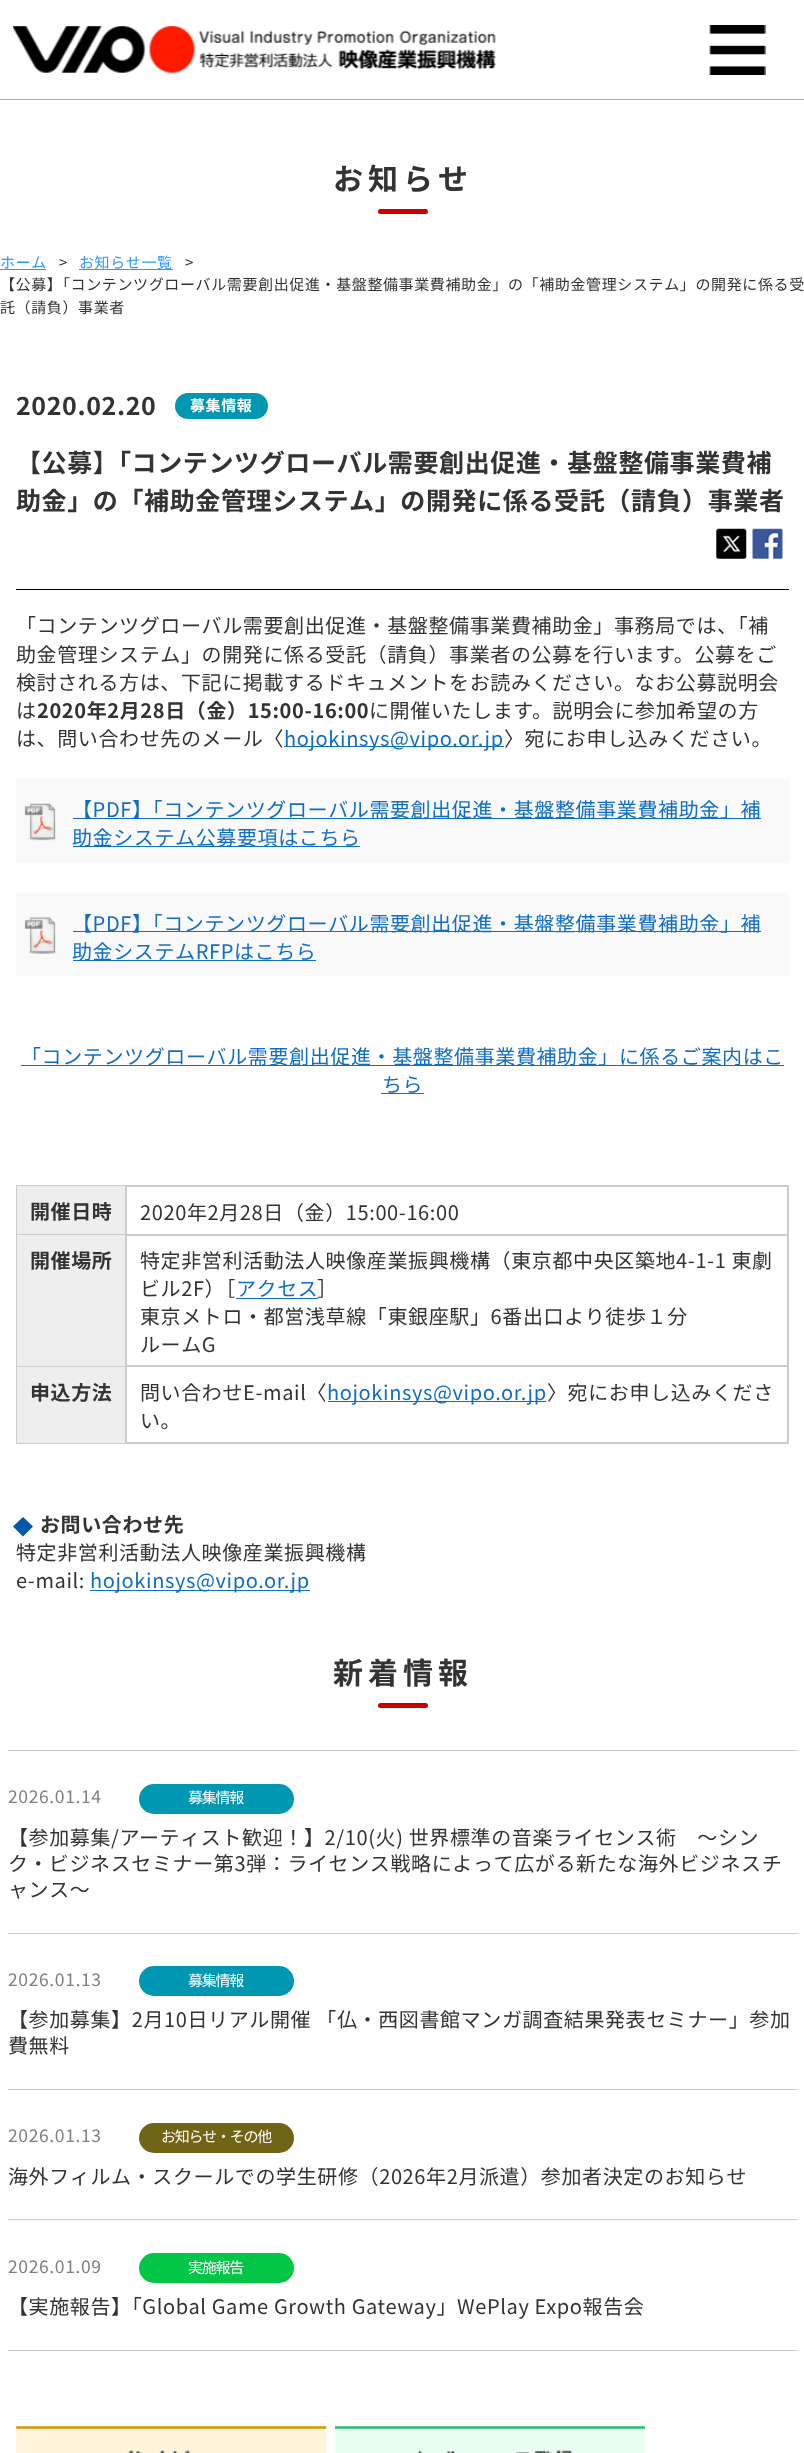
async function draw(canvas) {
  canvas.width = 804
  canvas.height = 2453
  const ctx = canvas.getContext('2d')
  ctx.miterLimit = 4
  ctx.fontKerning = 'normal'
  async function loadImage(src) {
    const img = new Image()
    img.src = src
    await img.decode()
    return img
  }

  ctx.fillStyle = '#fff'
  ctx.fillRect(0, 0, 804, 2453)
  ctx.fillStyle = '#b2b2b2'
  ctx.fillRect(0, 99, 804, 1)
  ctx.drawImage(await loadImage('image0.png'), 13, 26, 483, 47)
  ctx.drawImage(await loadImage('image1.png'), 709, 25, 57, 50)
  ctx.letterSpacing = '5px'
  ctx.font = 'bold 30px Noto Sans JP'
  ctx.fillStyle = '#333'
  ctx.fillText('お知らせ', 333, 190)
  ctx.fillStyle = '#c00'
  ctx.beginPath()
  ctx.roundRect(378, 209, 50, 5, 2.5)
  ctx.fill()
  ctx.letterSpacing = '0.62px'
  ctx.font = '15px Noto Sans JP'
  ctx.fillStyle = '#2c99ff'
  ctx.fillText('ホーム', 0, 268)
  ctx.fillRect(0, 269, 46, 1)
  ctx.fillStyle = '#333'
  ctx.fillText('>', 59, 268)
  ctx.fillStyle = '#2c99ff'
  ctx.fillRect(79, 269, 94, 1)
  ctx.fillText('お知らせ一覧', 79, 268)
  ctx.fillStyle = '#333'
  ctx.fillText('>', 185, 268)
  ctx.fillText('【公募】「コンテンツグローバル需要創出促進・基盤整備事業費補助金」の「補助金管理システム」の開発に係る受', 0, 290)
  ctx.fillText('託（請負）事業者', 0, 313)
  ctx.font = 'bold 25px Noto Sans JP'
  ctx.fillText('2020.02.20', 16, 415)
  ctx.fillStyle = '#0097b2'
  ctx.beginPath()
  ctx.roundRect(175, 393, 93, 26, 13)
  ctx.fill()
  ctx.font = 'bold 15px Noto Sans JP'
  ctx.fillStyle = '#fff'
  ctx.fillText('募集情報', 190, 411)
  ctx.font = 'bold 25px Noto Sans JP'
  ctx.fillStyle = '#333'
  ctx.fillText('【公募】「コンテンツグローバル需要創出促進・基盤整備事業費補', 16, 472)
  ctx.fillText('助金」の「補助金管理システム」の開発に係る受託（請負）事業者', 16, 510)
  ctx.drawImage(await loadImage('image2.png'), 716, 528, 31, 31)
  ctx.drawImage(await loadImage('image3.png'), 752, 528, 31, 31)
  ctx.fillStyle = '#000'
  ctx.fillRect(16, 589, 773, 1)
  ctx.font = '20px Noto Sans JP'
  ctx.fillStyle = '#333'
  ctx.fillText('「コンテンツグローバル需要創出促進・基盤整備事業費補助金」事務局では、「補', 16, 633)
  ctx.fillText('助金管理システム」の開発に係る受託（請負）事業者の公募を行います。公募をご', 16, 662)
  ctx.fillText('検討される方は、下記に掲載するドキュメントをお読みください。なお公募説明会', 16, 690)
  ctx.fillText('は', 16, 718)
  ctx.font = 'bold 20px Noto Sans JP'
  ctx.fillText('2020年2月28日（金）15:00-16:00', 37, 718)
  ctx.font = '20px Noto Sans JP'
  ctx.fillText('に開催いたします。説明会に参加希望の方', 369, 718)
  ctx.fillText('は、問い合わせ先のメール〈', 16, 746)
  ctx.fillStyle = '#126ec5'
  ctx.fillRect(284, 746, 220, 1)
  ctx.fillText('hojokinsys@vipo.or.jp', 284, 746)
  ctx.fillStyle = '#333'
  ctx.fillText('〉宛にお申し込みください。', 504, 746)
  ctx.fillStyle = '#f9f9f9'
  ctx.fillRect(16, 779, 773, 84)
  ctx.drawImage(await loadImage('image4.png'), 24, 803, 33, 38)
  ctx.fillStyle = '#126ec5'
  ctx.fillRect(73, 818, 688, 1)
  ctx.fillText('【PDF】「コンテンツグローバル需要創出促進・基盤整備事業費補助金」補', 72, 817)
  ctx.fillRect(73, 846, 287, 1)
  ctx.fillText('助金システム公募要項はこちら', 72, 845)
  ctx.fillStyle = '#f9f9f9'
  ctx.fillRect(16, 893, 773, 83)
  ctx.drawImage(await loadImage('image5.png'), 24, 917, 33, 37)
  ctx.fillStyle = '#126ec5'
  ctx.fillRect(73, 931, 688, 1)
  ctx.fillText('【PDF】「コンテンツグローバル需要創出促進・基盤整備事業費補助金」補', 72, 931)
  ctx.fillRect(73, 960, 243, 1)
  ctx.fillText('助金システムRFPはこちら', 72, 959)
  ctx.fillRect(21, 1065, 763, 1)
  ctx.fillText('「コンテンツグローバル需要創出促進・基盤整備事業費補助金」に係るご案内はこ', 21, 1064)
  ctx.fillText('ちら', 382, 1092)
  ctx.fillRect(381, 1093, 43, 1)
  ctx.fillStyle = '#ccc'
  ctx.fillRect(16, 1185, 773, 1)
  ctx.fillRect(788, 1185, 1, 259)
  ctx.fillRect(16, 1443, 773, 1)
  ctx.fillRect(16, 1185, 1, 259)
  ctx.fillStyle = '#eee'
  ctx.fillRect(17, 1186, 108, 48)
  ctx.font = 'bold 20px Noto Sans JP'
  ctx.fillStyle = '#333'
  ctx.fillText('開催日時', 30, 1219)
  ctx.strokeStyle = '#ccc'
  ctx.strokeRect(126.5, 1186.5, 661, 48)
  ctx.font = '20px Noto Sans JP'
  ctx.fillText('2020年2月28日（金）15:00-16:00', 140, 1220)
  ctx.fillStyle = '#eee'
  ctx.fillRect(17, 1235, 108, 131)
  ctx.fillStyle = '#ccc'
  ctx.fillRect(16, 1234, 110, 1)
  ctx.fillRect(16, 1366, 110, 1)
  ctx.fillRect(125, 1366, 1, 78)
  ctx.fillRect(125, 1185, 1, 183)
  ctx.font = 'bold 20px Noto Sans JP'
  ctx.fillStyle = '#333'
  ctx.fillText('開催場所', 30, 1268)
  ctx.strokeRect(126.5, 1235.5, 661, 130)
  ctx.font = '20px Noto Sans JP'
  ctx.fillText('特定非営利活動法人映像産業振興機構（東京都中央区築地4-1-1 東劇', 140, 1268)
  ctx.fillText('ビル2F）［', 140, 1296)
  ctx.fillStyle = '#126ec5'
  ctx.fillText('アクセス', 236, 1296)
  ctx.fillRect(236, 1298, 82, 1)
  ctx.fillStyle = '#333'
  ctx.fillText('］', 317, 1296)
  ctx.fillText('東京メトロ・都営浅草線「東銀座駅」6番出口より徒歩１分', 140, 1324)
  ctx.fillText('ルームG', 140, 1352)
  ctx.fillStyle = '#eee'
  ctx.fillRect(17, 1367, 108, 76)
  ctx.font = 'bold 20px Noto Sans JP'
  ctx.fillStyle = '#333'
  ctx.fillText('申込方法', 30, 1400)
  ctx.strokeRect(126.5, 1366.5, 661, 76)
  ctx.font = '20px Noto Sans JP'
  ctx.fillText('問い合わせE-mail〈', 140, 1400)
  ctx.fillStyle = '#126ec5'
  ctx.fillRect(328, 1401, 218, 1)
  ctx.fillText('hojokinsys@vipo.or.jp', 327, 1400)
  ctx.fillStyle = '#333'
  ctx.fillText('〉宛にお申し込みくださ', 547, 1400)
  ctx.fillText('い。', 140, 1428)
  ctx.fillStyle = '#0058a8'
  ctx.beginPath()
  ctx.moveTo(23, 1517)
  ctx.lineTo(33, 1526.5)
  ctx.lineTo(23, 1536.5)
  ctx.lineTo(13, 1526.5)
  ctx.closePath()
  ctx.fill()
  ctx.font = 'bold 20px Noto Sans JP'
  ctx.fillStyle = '#333'
  ctx.fillText('お問い合わせ先', 40, 1532)
  ctx.font = '20px Noto Sans JP'
  ctx.fillText('特定非営利活動法人映像産業振興機構', 16, 1560)
  ctx.fillText('e-mail:', 16, 1588)
  ctx.fillStyle = '#126ec5'
  ctx.fillRect(90, 1590, 220, 1)
  ctx.fillText('hojokinsys@vipo.or.jp', 90, 1588)
  ctx.letterSpacing = '5px'
  ctx.font = 'bold 30px Noto Sans JP'
  ctx.fillStyle = '#333'
  ctx.fillText('新着情報', 333, 1684)
  ctx.fillStyle = '#c00'
  ctx.beginPath()
  ctx.roundRect(378, 1703, 50, 5, 2.5)
  ctx.fill()
  ctx.fillStyle = '#ccc'
  ctx.fillRect(8, 1750, 790, 1)
  ctx.letterSpacing = '0.62px'
  ctx.font = '17.5px Noto Sans JP'
  ctx.fillStyle = '#808080'
  ctx.fillText('2026.01.14', 8, 1803)
  ctx.fillStyle = '#0097b2'
  ctx.beginPath()
  ctx.roundRect(139, 1784, 155, 30, 15)
  ctx.fill()
  ctx.letterSpacing = '-1.25px'
  ctx.font = '15px Noto Sans JP'
  ctx.fillStyle = '#fff'
  ctx.fillText('募集情報', 188, 1803)
  ctx.letterSpacing = '0.62px'
  ctx.font = '20px Noto Sans JP'
  ctx.fillStyle = '#333'
  ctx.fillText('【参加募集/アーティスト歓迎！】2/10(火) 世界標準の音楽ライセンス術　～シン', 8, 1845)
  ctx.fillText('ク・ビジネスセミナー第3弾：ライセンス戦略によって広がる新たな海外ビジネスチ', 8, 1871)
  ctx.fillText('ャンス～', 8, 1897)
  ctx.fillStyle = '#ccc'
  ctx.fillRect(8, 1933, 790, 1)
  ctx.font = '17.5px Noto Sans JP'
  ctx.fillStyle = '#808080'
  ctx.fillText('2026.01.13', 8, 1986)
  ctx.fillStyle = '#0097b2'
  ctx.beginPath()
  ctx.roundRect(139, 1966, 155, 30, 15)
  ctx.fill()
  ctx.letterSpacing = '-1.25px'
  ctx.font = '15px Noto Sans JP'
  ctx.fillStyle = '#fff'
  ctx.fillText('募集情報', 188, 1986)
  ctx.letterSpacing = '0.62px'
  ctx.font = '20px Noto Sans JP'
  ctx.fillStyle = '#333'
  ctx.fillText('【参加募集】2月10日リアル開催 「仏・西図書館マンガ調査結果発表セミナー」参加', 8, 2027)
  ctx.fillText('費無料', 8, 2053)
  ctx.fillStyle = '#ccc'
  ctx.fillRect(8, 2089, 790, 1)
  ctx.font = '17.5px Noto Sans JP'
  ctx.fillStyle = '#808080'
  ctx.fillText('2026.01.13', 8, 2142)
  ctx.fillStyle = '#706517'
  ctx.beginPath()
  ctx.roundRect(139, 2123, 155, 30, 15)
  ctx.fill()
  ctx.letterSpacing = '-1.25px'
  ctx.font = '15px Noto Sans JP'
  ctx.fillStyle = '#fff'
  ctx.fillText('お知らせ・その他', 161, 2142)
  ctx.letterSpacing = '0.62px'
  ctx.font = '20px Noto Sans JP'
  ctx.fillStyle = '#333'
  ctx.fillText('海外フィルム・スクールでの学生研修（2026年2月派遣）参加者決定のお知らせ', 8, 2184)
  ctx.fillStyle = '#ccc'
  ctx.fillRect(8, 2219, 790, 1)
  ctx.fillRect(8, 2350, 790, 1)
  ctx.font = '17.5px Noto Sans JP'
  ctx.fillStyle = '#808080'
  ctx.fillText('2026.01.09', 8, 2273)
  ctx.fillStyle = '#03c546'
  ctx.beginPath()
  ctx.roundRect(139, 2253, 155, 30, 15)
  ctx.fill()
  ctx.letterSpacing = '-1.25px'
  ctx.font = '15px Noto Sans JP'
  ctx.fillStyle = '#fff'
  ctx.fillText('実施報告', 188, 2273)
  ctx.letterSpacing = '0.62px'
  ctx.font = '20px Noto Sans JP'
  ctx.fillStyle = '#333'
  ctx.fillText('【実施報告】「Global Game Growth Gateway」WePlay Expo報告会', 8, 2314)
  ctx.drawImage(await loadImage('image6.png'), 16, 2426, 311, 27)
  ctx.drawImage(await loadImage('image7.png'), 335, 2426, 310, 27)
}

draw(document.querySelector('canvas'))
